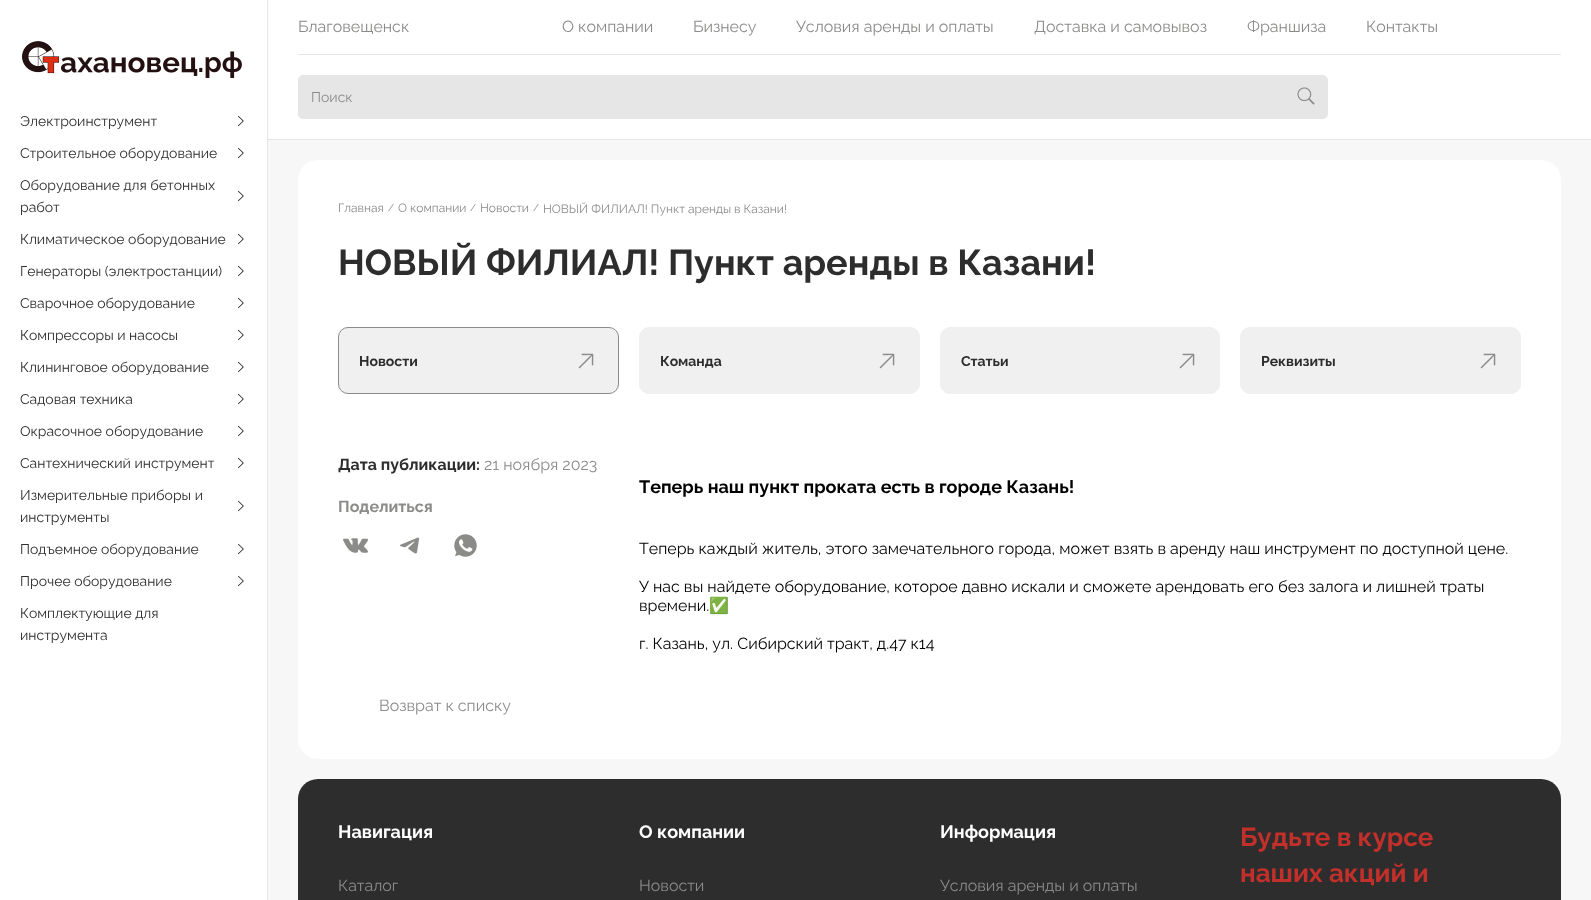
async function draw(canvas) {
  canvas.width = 1591
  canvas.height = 900
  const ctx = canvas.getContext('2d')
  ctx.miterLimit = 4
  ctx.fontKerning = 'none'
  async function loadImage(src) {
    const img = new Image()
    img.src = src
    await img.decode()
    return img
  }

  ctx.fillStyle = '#f7f7f7'
  ctx.fillRect(0, 0, 1591, 900)
  ctx.fillStyle = '#fff'
  ctx.fillRect(0, 0, 267, 900)
  ctx.fillStyle = '#e6e6e6'
  ctx.fillRect(267, 0, 1, 900)
  ctx.drawImage(await loadImage('image0.png'), 22, 41, 220, 37)
  ctx.font = '14px Raleway'
  ctx.fillStyle = '#2d2d2d'
  ctx.fillText('Электроинструмент', 20, 126)
  ctx.drawImage(await loadImage('image1.png'), 238, 115, 6, 12)
  ctx.fillText('Строительное оборудование', 20, 158)
  ctx.drawImage(await loadImage('image1.png'), 238, 147, 6, 12)
  ctx.fillText('Оборудование для бетонных', 20, 190)
  ctx.drawImage(await loadImage('image1.png'), 238, 190, 6, 12)
  ctx.fillText('работ', 20, 212)
  ctx.fillText('Климатическое оборудование', 20, 244)
  ctx.drawImage(await loadImage('image1.png'), 238, 233, 6, 12)
  ctx.fillText('Генераторы (электростанции)', 20, 276)
  ctx.drawImage(await loadImage('image1.png'), 238, 265, 6, 12)
  ctx.fillText('Сварочное оборудование', 20, 308)
  ctx.drawImage(await loadImage('image1.png'), 238, 297, 6, 12)
  ctx.fillText('Компрессоры и насосы', 20, 340)
  ctx.drawImage(await loadImage('image1.png'), 238, 329, 6, 12)
  ctx.fillText('Клининговое оборудование', 20, 372)
  ctx.drawImage(await loadImage('image1.png'), 238, 361, 6, 12)
  ctx.fillText('Садовая техника', 20, 404)
  ctx.drawImage(await loadImage('image1.png'), 238, 393, 6, 12)
  ctx.fillText('Окрасочное оборудование', 20, 436)
  ctx.drawImage(await loadImage('image1.png'), 238, 425, 6, 12)
  ctx.fillText('Сантехнический инструмент', 20, 468)
  ctx.drawImage(await loadImage('image1.png'), 238, 457, 6, 12)
  ctx.fillText('Измерительные приборы и', 20, 500)
  ctx.drawImage(await loadImage('image1.png'), 238, 500, 6, 12)
  ctx.fillText('инструменты', 20, 522)
  ctx.fillText('Подъемное оборудование', 20, 554)
  ctx.drawImage(await loadImage('image1.png'), 238, 543, 6, 12)
  ctx.fillText('Прочее оборудование', 20, 586)
  ctx.drawImage(await loadImage('image1.png'), 238, 575, 6, 12)
  ctx.fillText('Комплектующие для', 20, 618)
  ctx.fillText('инструмента', 20, 640)
  ctx.fillStyle = '#fff'
  ctx.fillRect(268, 0, 1323, 139)
  ctx.fillStyle = '#e6e6e6'
  ctx.fillRect(268, 139, 1323, 1)
  ctx.font = '16px Raleway'
  ctx.fillStyle = '#8b8b8a'
  ctx.fillText('Благовещенск', 298, 32)
  ctx.fillText('О компании', 562, 32)
  ctx.fillText('Бизнесу', 693, 32)
  ctx.fillText('Условия аренды и оплаты', 796, 32)
  ctx.fillText('Доставка и самовывоз', 1034, 32)
  ctx.fillText('Франшиза', 1247, 32)
  ctx.fillText('Контакты', 1366, 32)
  ctx.fillStyle = '#e6e6e6'
  ctx.fillRect(298, 54, 1263, 1)
  ctx.beginPath()
  ctx.roundRect(298.5, 75.5, 1029, 43, 4.5)
  ctx.fill()
  ctx.strokeStyle = '#e6e6e6'
  ctx.stroke()
  ctx.font = '14px Raleway'
  ctx.fillStyle = '#8b8b8a'
  ctx.fillText('Поиск', 311, 102)
  ctx.drawImage(await loadImage('image2.png'), 1297, 87, 18, 18)
  ctx.fillStyle = '#fff'
  ctx.beginPath()
  ctx.roundRect(298, 160, 1263, 599, 20)
  ctx.fill()
  ctx.font = '12px Raleway'
  ctx.fillStyle = '#8b8b8a'
  ctx.fillText('Главная', 338, 212)
  ctx.font = '10px Raleway'
  ctx.fillText('/', 388, 211)
  ctx.font = '12px Raleway'
  ctx.fillText('О компании', 398, 212)
  ctx.font = '10px Raleway'
  ctx.fillText('/', 470, 211)
  ctx.font = '12px Raleway'
  ctx.fillText('Новости', 480, 212)
  ctx.font = '10px Raleway'
  ctx.fillText('/', 533, 211)
  ctx.font = '12px Raleway'
  ctx.fillText('НОВЫЙ ФИЛИАЛ! Пункт аренды в Казани!', 543, 213)
  ctx.font = 'bold 36px Raleway'
  ctx.fillStyle = '#2d2d2d'
  ctx.fillText('НОВЫЙ ФИЛИАЛ! Пункт аренды в Казани!', 338, 275)
  ctx.fillStyle = '#f0f0f0'
  ctx.beginPath()
  ctx.roundRect(338.5, 327.5, 280, 66, 9.5)
  ctx.fill()
  ctx.strokeStyle = '#8b8b8a'
  ctx.stroke()
  ctx.font = 'bold 14px Raleway'
  ctx.fillStyle = '#2d2d2d'
  ctx.fillText('Новости', 359, 366)
  ctx.drawImage(await loadImage('image3.png'), 578, 353, 16, 16)
  ctx.fillStyle = '#f0f0f0'
  ctx.beginPath()
  ctx.roundRect(639.5, 327.5, 280, 66, 9.5)
  ctx.fill()
  ctx.strokeStyle = '#f0f0f0'
  ctx.stroke()
  ctx.fillStyle = '#2d2d2d'
  ctx.fillText('Команда', 660, 366)
  ctx.drawImage(await loadImage('image3.png'), 879, 353, 16, 16)
  ctx.fillStyle = '#f0f0f0'
  ctx.beginPath()
  ctx.roundRect(940.5, 327.5, 279, 66, 9.5)
  ctx.fill()
  ctx.stroke()
  ctx.fillStyle = '#2d2d2d'
  ctx.fillText('Статьи', 961, 366)
  ctx.drawImage(await loadImage('image3.png'), 1179, 353, 16, 16)
  ctx.fillStyle = '#f0f0f0'
  ctx.beginPath()
  ctx.roundRect(1240.5, 327.5, 280, 66, 9.5)
  ctx.fill()
  ctx.stroke()
  ctx.fillStyle = '#2d2d2d'
  ctx.fillText('Реквизиты', 1261, 366)
  ctx.drawImage(await loadImage('image3.png'), 1480, 353, 16, 16)
  ctx.font = 'bold 16px Raleway'
  ctx.fillText('Дата публикации:', 338, 470)
  ctx.font = '16px Raleway'
  ctx.fillStyle = '#8b8b8a'
  ctx.fillText('21 ноября 2023', 484, 470)
  ctx.font = 'bold 16px Raleway'
  ctx.fillText('Поделиться', 338, 512)
  ctx.drawImage(await loadImage('image4.png'), 343, 538, 25, 15)
  ctx.drawImage(await loadImage('image5.png'), 399, 537, 21, 17)
  ctx.drawImage(await loadImage('image6.png'), 454, 534, 23, 23)
  ctx.font = 'bold 18px Raleway'
  ctx.fillStyle = '#000'
  ctx.fillText('Теперь наш пункт проката есть в городе Казань!', 639, 493)
  ctx.font = '16px Raleway'
  ctx.fillText('Теперь каждый житель, этого замечательного города, может взять в аренду наш инструмент по доступной цене.', 639, 554)
  ctx.fillText('У нас вы найдете оборудование, которое давно искали и сможете арендовать его без залога и лишней траты', 639, 592)
  ctx.fillText('времени.', 639, 611)
  ctx.font = '16px Noto Color Emoji'
  ctx.fillText('✅', 709, 611)
  ctx.font = '16px Raleway'
  ctx.fillText('г. Казань, ул. Сибирский тракт, д.47 к14', 639, 649)
  ctx.fillStyle = '#8b8b8a'
  ctx.fillText('Возврат к списку', 379, 711)
  ctx.fillStyle = '#2d2d2d'
  ctx.beginPath()
  ctx.roundRect(298, 779, 1263, 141, 20)
  ctx.fill()
  ctx.font = 'bold 18px Raleway'
  ctx.fillStyle = '#fff'
  ctx.fillText('Навигация', 338, 838)
  ctx.font = '16px Raleway'
  ctx.fillStyle = '#8b8b8a'
  ctx.fillText('Каталог', 338, 891)
  ctx.font = 'bold 18px Raleway'
  ctx.fillStyle = '#fff'
  ctx.fillText('О компании', 639, 838)
  ctx.font = '16px Raleway'
  ctx.fillStyle = '#8b8b8a'
  ctx.fillText('Новости', 639, 891)
  ctx.font = 'bold 18px Raleway'
  ctx.fillStyle = '#fff'
  ctx.fillText('Информация', 940, 838)
  ctx.font = '16px Raleway'
  ctx.fillStyle = '#8b8b8a'
  ctx.fillText('Условия аренды и оплаты', 940, 891)
  ctx.font = 'bold 26px Raleway'
  ctx.fillStyle = '#c1302b'
  ctx.fillText('Будьте в курсе', 1240, 846)
  ctx.fillText('наших акций и', 1240, 882)
}

draw(document.querySelector('canvas'))
